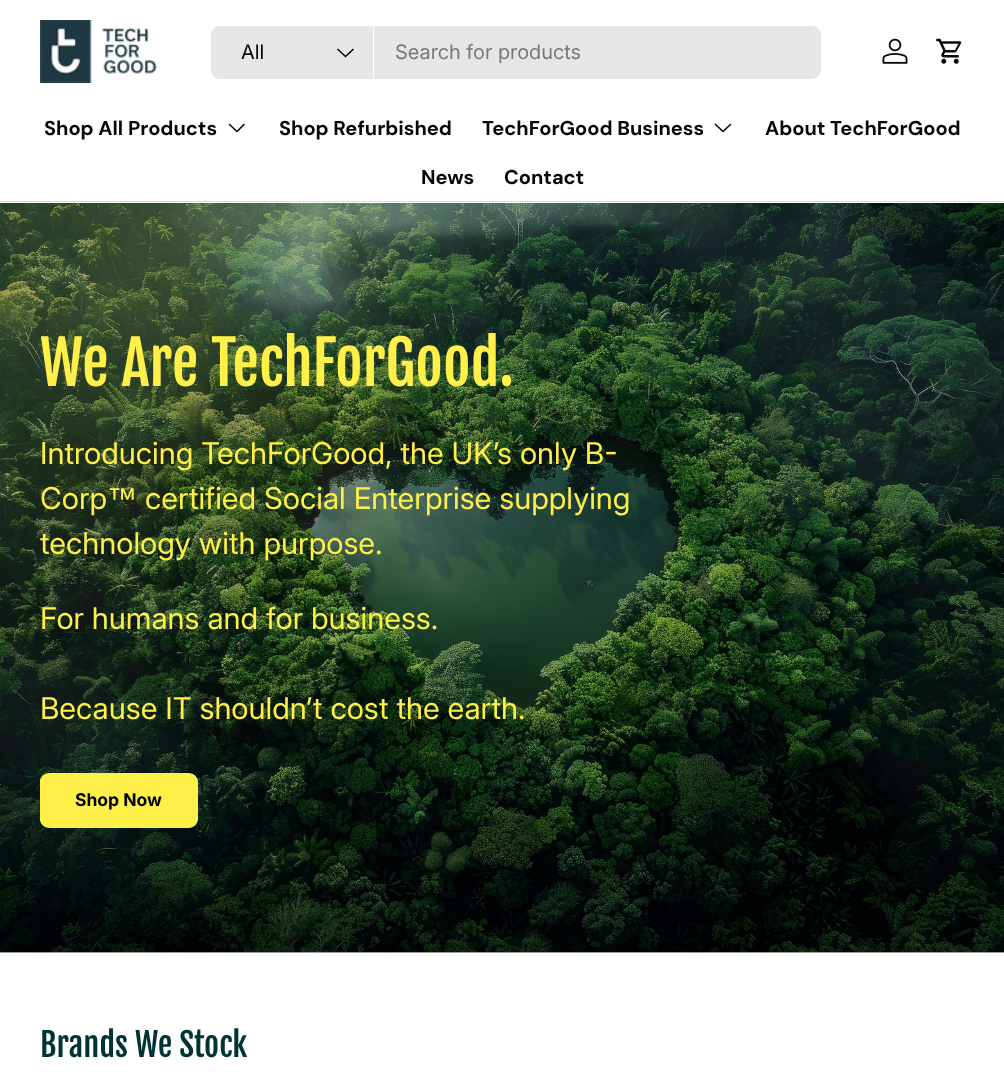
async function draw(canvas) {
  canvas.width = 1004
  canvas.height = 1091
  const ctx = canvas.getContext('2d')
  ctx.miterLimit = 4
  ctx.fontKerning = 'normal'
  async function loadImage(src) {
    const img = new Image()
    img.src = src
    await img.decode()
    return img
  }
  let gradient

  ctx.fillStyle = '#fff'
  ctx.fillRect(0, 0, 1004, 1091)
  ctx.fillStyle = '#ccc'
  ctx.fillRect(0, 952, 1004, 1)
  ctx.fillStyle = '#dadada'
  ctx.fillRect(0, 201, 1004, 1)
  ctx.drawImage(await loadImage('image0.png'), 40, 20, 117, 63)
  ctx.fillStyle = '#e6e6e6'
  ctx.beginPath()
  ctx.roundRect(211, 26, 610, 53, 9)
  ctx.fill()
  ctx.beginPath()
  ctx.roundRect(211, 26, 163, 53, [9, 0, 0, 9])
  ctx.fill()
  ctx.fillStyle = '#fff'
  ctx.fillRect(373, 26, 1, 53)
  ctx.font = '20px "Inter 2"'
  ctx.fillStyle = '#070707'
  ctx.fillText('All', 241, 59)
  ctx.beginPath()
  ctx.moveTo(353.5, 49)
  ctx.lineTo(345.5, 56.5)
  ctx.lineTo(337.5, 49)
  ctx.strokeStyle = '#070707'
  ctx.lineWidth = 1.6
  ctx.stroke()
  ctx.fillStyle = '#777'
  ctx.fillText('Search for products', 395, 59)
  ctx.drawImage(await loadImage('image1.png'), 882, 38, 26, 26)
  ctx.drawImage(await loadImage('image2.png'), 936, 38, 26, 26)
  ctx.font = 'bold 20px DM Sans'
  ctx.fillStyle = '#070707'
  ctx.fillText('Shop All Products', 44, 135)
  ctx.beginPath()
  ctx.moveTo(244.5, 124)
  ctx.lineTo(237, 131.5)
  ctx.lineTo(229, 124)
  ctx.stroke()
  ctx.fillText('Shop Refurbished', 279, 135)
  ctx.fillText('TechForGood Business', 482, 135)
  ctx.beginPath()
  ctx.moveTo(731, 124)
  ctx.lineTo(723, 131.5)
  ctx.lineTo(715, 124)
  ctx.stroke()
  ctx.fillText('About TechForGood', 765, 135)
  ctx.fillText('News', 421, 184)
  ctx.fillText('Contact', 504, 184)
  ctx.drawImage(await loadImage('image3.png'), 0, 203, 1004, 750)
  ctx.font = '59.75px Fjalla One'
  ctx.fillStyle = '#fff049'
  ctx.fillText('We Are TechForGood.', 40, 386)
  ctx.font = '30px Inter'
  ctx.fillText('Introducing TechForGood, the UK’s only B-', 40, 464)
  ctx.fillText('Corp', 40, 509)
  ctx.font = '30px Liberation Sans'
  ctx.fillText('™', 107, 509)
  ctx.font = '30px Inter'
  ctx.fillText('certified Social Enterprise supplying', 145, 509)
  ctx.fillText('technology with purpose.', 40, 554)
  ctx.fillText('For humans and for business.', 40, 629)
  ctx.fillText('Because IT shouldn’t cost the earth.', 40, 719)
  ctx.save()
  ctx.beginPath()
  ctx.roundRect(40, 773, 158, 55, 9)
  ctx.clip()
  gradient = ctx.createLinearGradient(-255, 745, 187, 855)
  gradient.addColorStop(0.6, '#ffec16')
  gradient.addColorStop(0.6, '#fff049')
  gradient.addColorStop(1, '#fff049')
  ctx.fillStyle = gradient
  ctx.fillRect(40, 775, 155, 50)
  ctx.restore()
  ctx.beginPath()
  ctx.roundRect(41.5, 774.5, 155, 52, 7.5)
  ctx.strokeStyle = '#fff049'
  ctx.lineWidth = 3
  ctx.stroke()
  ctx.font = 'bold 17.5px Inter'
  ctx.fillStyle = '#000'
  ctx.fillText('Shop Now', 75, 806)
  ctx.font = '32.5px Fjalla One'
  ctx.fillStyle = '#003433'
  ctx.fillText('Brands We Stock', 40, 1057)
}

draw(document.querySelector('canvas'))
